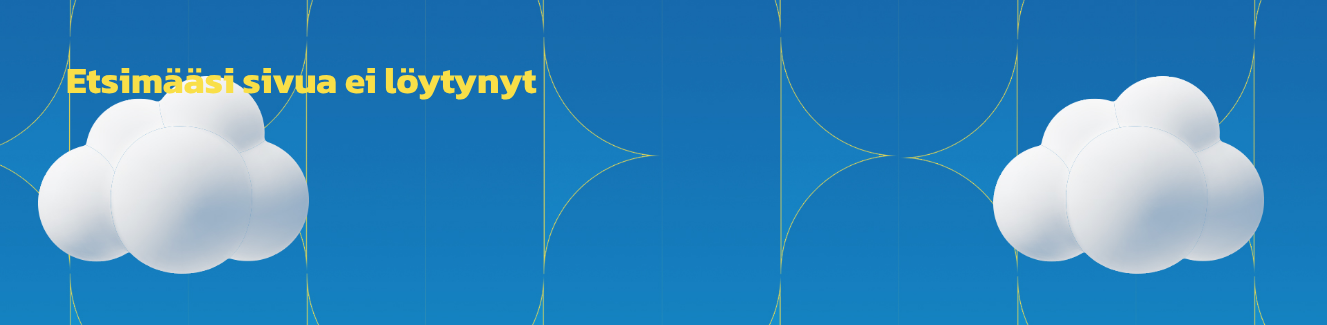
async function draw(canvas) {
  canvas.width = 1327
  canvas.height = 325
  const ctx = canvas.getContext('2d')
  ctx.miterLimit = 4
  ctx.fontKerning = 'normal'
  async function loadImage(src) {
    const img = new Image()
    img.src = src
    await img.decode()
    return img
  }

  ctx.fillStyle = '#fff'
  ctx.fillRect(0, 0, 1327, 325)
  ctx.drawImage(await loadImage('image0.png'), 0, 0, 1327, 325)
  ctx.font = 'bold 37.2px Kanit'
  ctx.fillStyle = '#f9df48'
  ctx.fillText('Etsimääsi sivua ei löytynyt', 66, 93)
}

draw(document.querySelector('canvas'))
